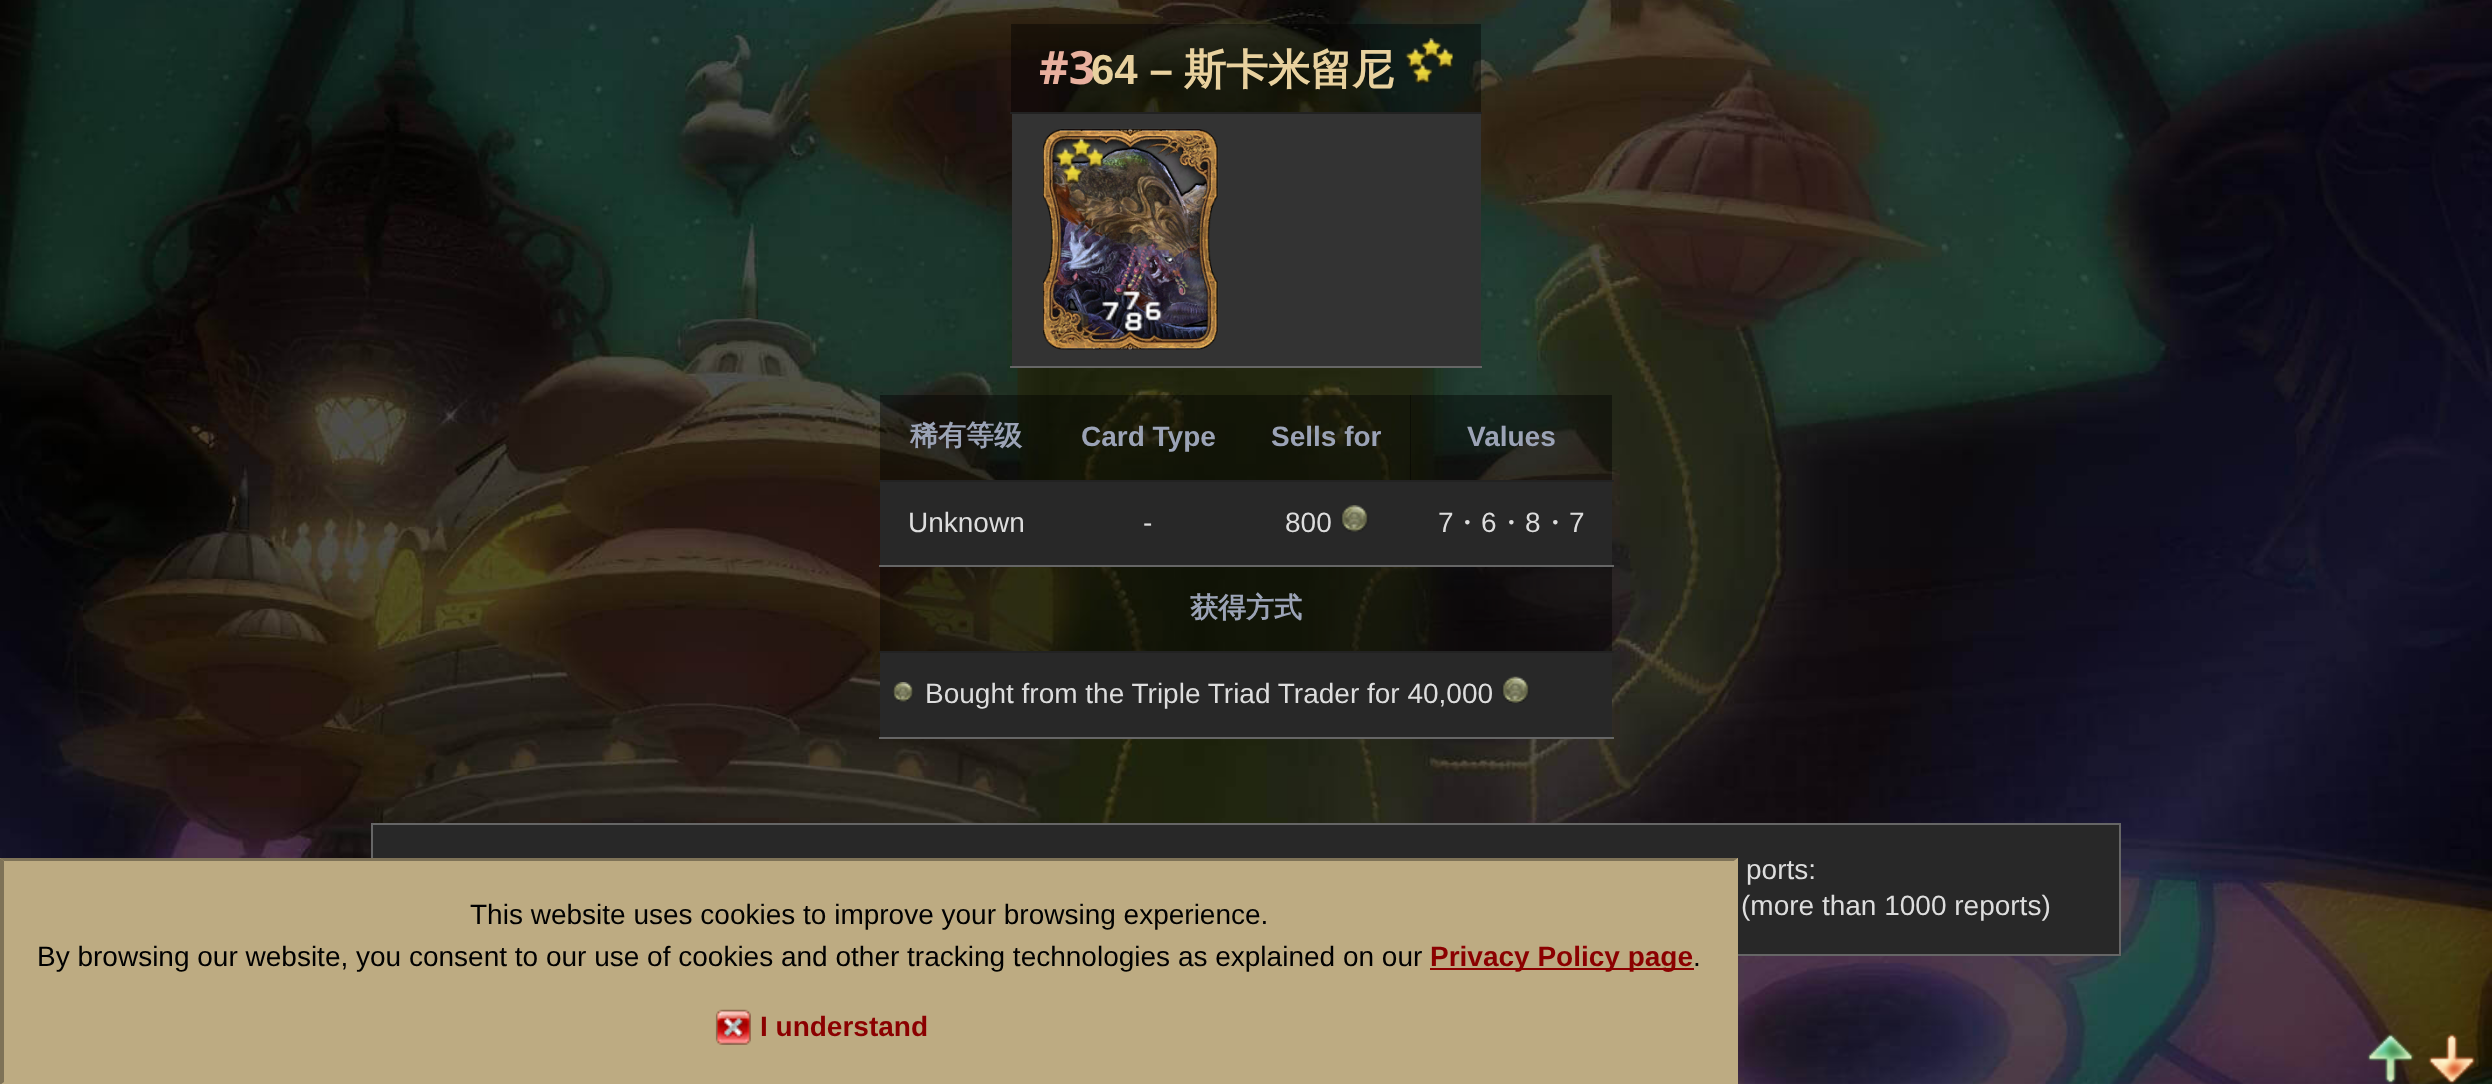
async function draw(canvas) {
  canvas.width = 2492
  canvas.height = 1084
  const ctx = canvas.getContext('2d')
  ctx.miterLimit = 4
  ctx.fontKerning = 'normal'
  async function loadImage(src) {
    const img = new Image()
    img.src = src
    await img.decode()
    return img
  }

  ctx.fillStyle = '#fff'
  ctx.fillRect(0, 0, 2492, 1084)
  ctx.drawImage(await loadImage('image0.png'), 0, 0, 2492, 1084)
  ctx.fillStyle = '#00000069'
  ctx.fillRect(1011, 24, 470, 88)
  ctx.fillStyle = '#222'
  ctx.fillRect(1010, 112, 472, 2)
  ctx.font = 'bold 46px Noto Sans'
  ctx.fillStyle = '#e8af9e'
  ctx.fillText('#3', 1039, 84)
  ctx.font = 'bold 42px Liberation Sans'
  ctx.fillStyle = '#e8d19e'
  ctx.fillText('64 –', 1091, 84)
  ctx.font = 'bold 42px WenQuanYi Zen Hei'
  ctx.fillText('斯卡米留尼', 1184, 84)
  ctx.drawImage(await loadImage('image1.png'), 1405, 38, 48, 46)
  ctx.fillStyle = '#333'
  ctx.fillRect(1012, 114, 469, 252)
  ctx.drawImage(await loadImage('image2.png'), 1043, 128, 176, 222)
  ctx.drawImage(await loadImage('image3.png'), 1043, 129, 175, 221)
  ctx.drawImage(await loadImage('image4.png'), 1055, 137, 48, 47)
  ctx.drawImage(await loadImage('image5.png'), 1102, 299, 19, 24)
  ctx.drawImage(await loadImage('image6.png'), 1121, 288, 21, 24)
  ctx.drawImage(await loadImage('image7.png'), 1142, 299, 22, 24)
  ctx.drawImage(await loadImage('image8.png'), 1123, 309, 21, 25)
  ctx.fillStyle = '#666'
  ctx.fillRect(1010, 366, 472, 2)
  ctx.fillStyle = '#00000069'
  ctx.fillRect(880, 395, 172, 85)
  ctx.font = 'bold 28px WenQuanYi Zen Hei'
  ctx.fillStyle = '#9ba3b6'
  ctx.fillText('稀有等级', 910, 445)
  ctx.fillStyle = '#00000069'
  ctx.fillRect(1052, 395, 192, 85)
  ctx.font = 'bold 28px Liberation Sans'
  ctx.fillStyle = '#9ba3b6'
  ctx.fillText('Card Type', 1081, 446)
  ctx.fillStyle = '#00000069'
  ctx.fillRect(1244, 395, 167, 85)
  ctx.fillStyle = '#9ba3b6'
  ctx.fillText('Sells for', 1271, 446)
  ctx.fillStyle = '#00000069'
  ctx.fillRect(1410, 395, 202, 85)
  ctx.fillStyle = '#222'
  ctx.fillRect(879, 480, 735, 2)
  ctx.fillStyle = '#9ba3b6'
  ctx.fillText('Values', 1467, 446)
  ctx.fillStyle = '#282828'
  ctx.fillRect(880, 482, 732, 83)
  ctx.font = '28px Liberation Sans'
  ctx.fillStyle = '#ddd'
  ctx.fillText('Unknown', 908, 532)
  ctx.fillText('-', 1143, 532)
  ctx.fillText('800', 1285, 532)
  ctx.drawImage(await loadImage('image9.png'), 1340, 505, 29, 27)
  ctx.fillStyle = '#666'
  ctx.fillRect(879, 565, 735, 2)
  ctx.fillStyle = '#ddd'
  ctx.fillText('7', 1438, 532)
  ctx.font = '500 28px WenQuanYi Zen Hei'
  ctx.fillText('・', 1453, 532)
  ctx.font = '28px Liberation Sans'
  ctx.fillText('6', 1481, 532)
  ctx.font = '500 28px WenQuanYi Zen Hei'
  ctx.fillText('・', 1497, 532)
  ctx.font = '28px Liberation Sans'
  ctx.fillText('8', 1525, 532)
  ctx.font = '500 28px WenQuanYi Zen Hei'
  ctx.fillText('・', 1541, 532)
  ctx.font = '28px Liberation Sans'
  ctx.fillText('7', 1569, 532)
  ctx.fillStyle = '#00000069'
  ctx.fillRect(880, 567, 732, 84)
  ctx.fillStyle = '#222'
  ctx.fillRect(879, 651, 735, 2)
  ctx.font = 'bold 28px WenQuanYi Zen Hei'
  ctx.fillStyle = '#9ba3b6'
  ctx.fillText('获得方式', 1190, 617)
  ctx.fillStyle = '#282828'
  ctx.fillRect(880, 653, 732, 84)
  ctx.fillStyle = '#666'
  ctx.fillRect(879, 737, 735, 2)
  ctx.drawImage(await loadImage('image10.png'), 892, 682, 22, 20)
  ctx.font = '28px Liberation Sans'
  ctx.fillStyle = '#ddd'
  ctx.fillText('Bought from the Triple Triad Trader for 40,000', 925, 703)
  ctx.drawImage(await loadImage('image11.png'), 1501, 676, 29, 27)
  ctx.fillStyle = '#282828'
  ctx.beginPath()
  ctx.rect(372, 824, 1748, 131)
  ctx.fill()
  ctx.strokeStyle = '#666'
  ctx.lineWidth = 2
  ctx.stroke()
  ctx.fillStyle = '#ddd'
  ctx.fillText('ports:', 1746, 879)
  ctx.fillText('(more than 1000 reports)', 1741, 915)
  ctx.fillStyle = '#bdab82'
  ctx.fillRect(0, 858, 1738, 226)
  ctx.fillStyle = '#7e7257'
  ctx.beginPath()
  ctx.moveTo(0, 858)
  ctx.lineTo(1738, 858)
  ctx.lineTo(1734, 861)
  ctx.lineTo(4, 861)
  ctx.closePath()
  ctx.fill()
  ctx.fillStyle = '#bdab82'
  ctx.beginPath()
  ctx.moveTo(1738, 858)
  ctx.lineTo(1738, 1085)
  ctx.lineTo(1734, 1082)
  ctx.lineTo(1734, 861)
  ctx.closePath()
  ctx.fill()
  ctx.fillStyle = '#7e7257'
  ctx.beginPath()
  ctx.moveTo(0, 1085)
  ctx.lineTo(0, 858)
  ctx.lineTo(4, 861)
  ctx.lineTo(4, 1082)
  ctx.closePath()
  ctx.fill()
  ctx.fillStyle = '#000'
  ctx.fillText('This website uses cookies to improve your browsing experience.', 470, 924)
  ctx.fillText('By browsing our website, you consent to our use of cookies and other tracking technologies as explained on our', 37, 966)
  ctx.fillStyle = '#8b0000'
  ctx.fillRect(1430, 968, 264, 2)
  ctx.font = 'bold 28px Liberation Sans'
  ctx.fillText('Privacy Policy page', 1430, 966)
  ctx.font = '28px Liberation Sans'
  ctx.fillStyle = '#000'
  ctx.fillText('.', 1693, 966)
  ctx.drawImage(await loadImage('image12.png'), 715, 1009, 36, 36)
  ctx.font = 'bold 28px Liberation Sans'
  ctx.fillStyle = '#8b0000'
  ctx.fillText('I understand', 760, 1036)
  ctx.drawImage(await loadImage('image13.png'), 2367, 1034, 47, 50)
  ctx.drawImage(await loadImage('image14.png'), 2428, 1034, 47, 50)
}

draw(document.querySelector('canvas'))
